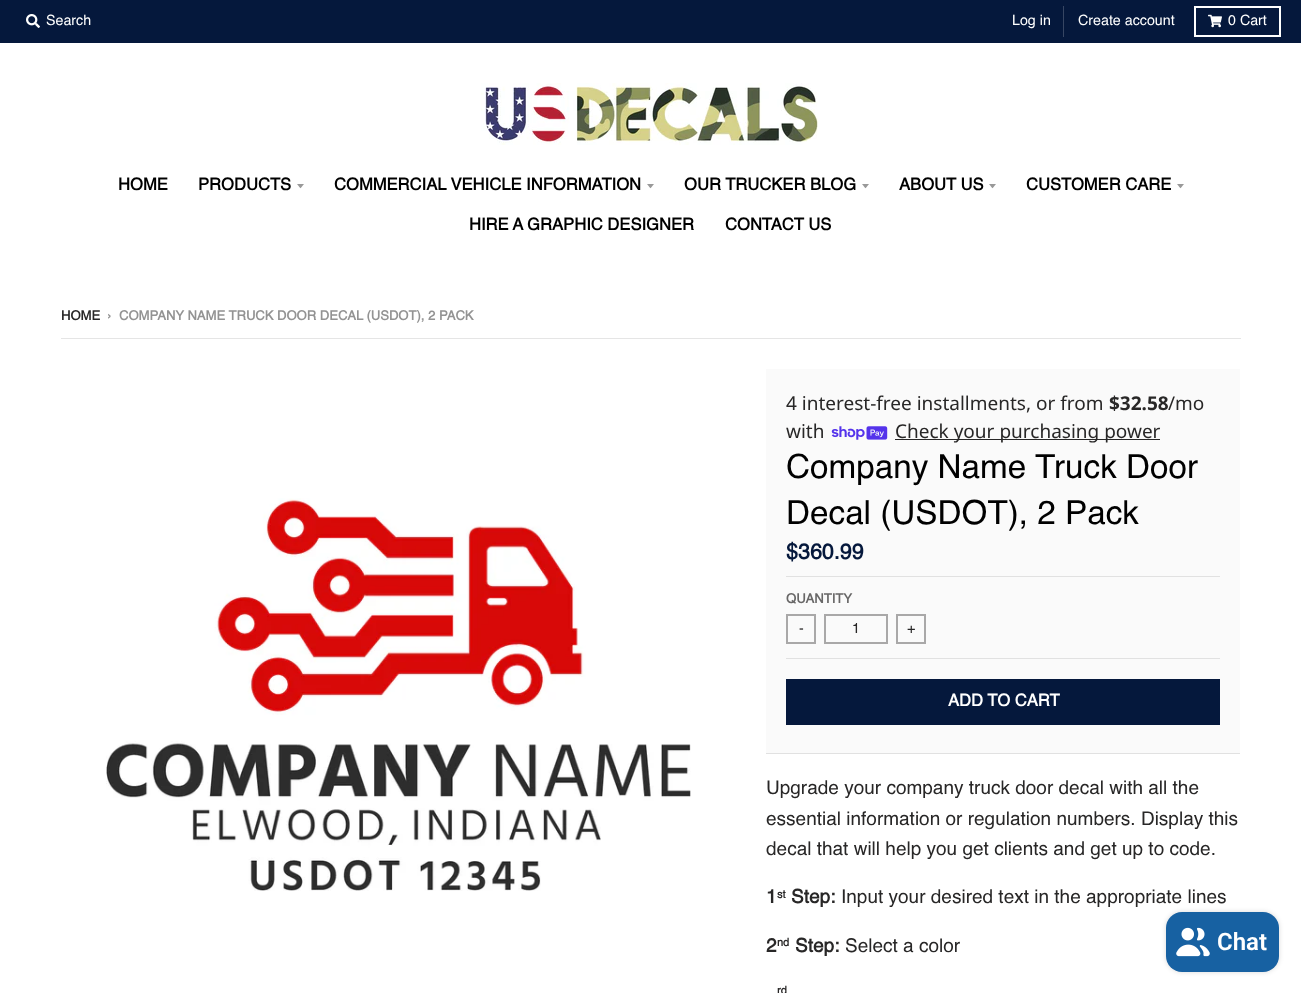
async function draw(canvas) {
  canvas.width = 1301
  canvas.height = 993
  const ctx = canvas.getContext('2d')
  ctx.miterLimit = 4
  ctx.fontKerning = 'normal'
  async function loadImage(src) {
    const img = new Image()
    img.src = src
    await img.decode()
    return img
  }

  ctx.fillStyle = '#fff'
  ctx.fillRect(0, 0, 1301, 993)
  ctx.fillStyle = '#05183c'
  ctx.fillRect(0, 0, 1301, 43)
  ctx.drawImage(await loadImage('image0.png'), 26, 14, 14, 14)
  ctx.font = '14.25px Helvetica'
  ctx.fillStyle = '#fff'
  ctx.fillText('Search', 46, 25)
  ctx.fillStyle = '#374663'
  ctx.fillRect(1063, 6, 1, 31)
  ctx.fillStyle = '#fff'
  ctx.fillText('Log in', 1012, 25)
  ctx.fillText('Create account', 1078, 25)
  ctx.strokeStyle = '#fff'
  ctx.lineWidth = 2
  ctx.strokeRect(1195, 7, 85, 29)
  ctx.drawImage(await loadImage('image1.png'), 1208, 14, 14, 14)
  ctx.fillText('0 Cart', 1228, 25)
  ctx.drawImage(await loadImage('image2.png'), 481, 83, 337, 62)
  ctx.font = 'bold 16.6px Helvetica'
  ctx.fillStyle = '#000'
  ctx.fillText('HOME', 118, 190)
  ctx.fillText('PRODUCTS', 198, 190)
  ctx.fillStyle = '#999'
  ctx.beginPath()
  ctx.moveTo(297, 184)
  ctx.bezierCurveTo(301.5, 189.5, 299.5, 189.5, 304, 184)
  ctx.closePath()
  ctx.fill()
  ctx.fillStyle = '#000'
  ctx.fillText('COMMERCIAL VEHICLE INFORMATION', 334, 190)
  ctx.fillStyle = '#999'
  ctx.beginPath()
  ctx.moveTo(647, 184)
  ctx.bezierCurveTo(651.5, 189.5, 649.5, 189.5, 654, 184)
  ctx.closePath()
  ctx.fill()
  ctx.fillStyle = '#000'
  ctx.fillText('OUR TRUCKER BLOG', 684, 190)
  ctx.fillStyle = '#999'
  ctx.beginPath()
  ctx.moveTo(862, 184)
  ctx.bezierCurveTo(866.5, 189.5, 864.5, 189.5, 869, 184)
  ctx.closePath()
  ctx.fill()
  ctx.fillStyle = '#000'
  ctx.fillText('ABOUT US', 899, 190)
  ctx.fillStyle = '#999'
  ctx.beginPath()
  ctx.moveTo(989, 184)
  ctx.bezierCurveTo(993.5, 189.5, 991.5, 189.5, 996, 184)
  ctx.closePath()
  ctx.fill()
  ctx.fillStyle = '#000'
  ctx.fillText('CUSTOMER CARE', 1026, 190)
  ctx.fillStyle = '#999'
  ctx.beginPath()
  ctx.moveTo(1177, 184)
  ctx.bezierCurveTo(1181.5, 189.5, 1179.5, 189.5, 1184, 184)
  ctx.closePath()
  ctx.fill()
  ctx.fillStyle = '#000'
  ctx.fillText('HIRE A GRAPHIC DESIGNER', 469, 230)
  ctx.fillText('CONTACT US', 725, 230)
  ctx.font = 'bold 13.05px Helvetica'
  ctx.fillStyle = '#282727'
  ctx.fillText('HOME', 61, 320)
  ctx.fillStyle = '#939393'
  ctx.fillText('›', 107, 320)
  ctx.fillText('COMPANY NAME TRUCK DOOR DECAL (USDOT), 2 PACK', 119, 320)
  ctx.fillStyle = '#e5e5e5'
  ctx.fillRect(61, 338, 1180, 1)
  ctx.drawImage(await loadImage('image3.png'), 106, 498, 585, 393)
  ctx.fillStyle = '#fafafa'
  ctx.fillRect(766, 369, 474, 384)
  ctx.fillStyle = '#e1e1e1'
  ctx.fillRect(766, 753, 474, 1)
  ctx.font = '19px Noto Sans'
  ctx.fillStyle = '#282727'
  ctx.fillText('4 interest-free installments, or from', 786, 410)
  ctx.font = 'bold 19px Noto Sans'
  ctx.fillText('$32.58', 1109, 410)
  ctx.font = '19px Noto Sans'
  ctx.fillText('/mo', 1168, 410)
  ctx.fillText('with', 786, 438)
  ctx.drawImage(await loadImage('image4.png'), 831, 426, 57, 14)
  ctx.fillRect(895, 439, 265, 1)
  ctx.fillText('Check your purchasing power', 895, 438)
  ctx.font = '33.25px Helvetica'
  ctx.fillStyle = '#000'
  ctx.fillText('Company Name Truck Door', 786, 478)
  ctx.fillText('Decal (USDOT), 2 Pack', 786, 524)
  ctx.fillStyle = '#e1e1e1'
  ctx.fillRect(786, 576, 434, 1)
  ctx.font = 'bold 21.5px Helvetica'
  ctx.fillStyle = '#05183c'
  ctx.fillText('$360.99', 786, 559)
  ctx.fillStyle = '#e1e1e1'
  ctx.fillRect(786, 658, 434, 1)
  ctx.font = 'bold 13.05px Helvetica'
  ctx.fillStyle = '#686767'
  ctx.fillText('QUANTITY', 786, 603)
  ctx.strokeStyle = '#a9a8a8'
  ctx.strokeRect(787, 615, 28, 28)
  ctx.font = '14.25px Helvetica'
  ctx.fillStyle = '#282727'
  ctx.fillText('-', 799, 633)
  ctx.strokeRect(825, 615, 62, 28)
  ctx.fillText('1', 852, 633)
  ctx.strokeRect(897, 615, 28, 28)
  ctx.fillText('+', 907, 633)
  ctx.fillStyle = '#05183c'
  ctx.fillRect(786, 679, 434, 46)
  ctx.font = 'bold 16.6px Helvetica'
  ctx.fillStyle = '#fff'
  ctx.fillText('ADD TO CART', 948, 706)
  ctx.font = '19px Helvetica'
  ctx.fillStyle = '#282727'
  ctx.fillText('Upgrade your company truck door decal with all the', 766, 794)
  ctx.fillText('essential information or regulation numbers. Display this', 766, 825)
  ctx.fillText('decal that will help you get clients and get up to code.', 766, 855)
  ctx.font = 'bold 19px Helvetica'
  ctx.fillText('1', 766, 903)
  ctx.font = 'bold 11px Helvetica'
  ctx.fillText('st', 777, 898)
  ctx.font = 'bold 19px Helvetica'
  ctx.fillText('Step:', 791, 903)
  ctx.font = '19px Helvetica'
  ctx.fillText('Input your desired text in the appropriate lines', 841, 903)
  ctx.font = 'bold 19px Helvetica'
  ctx.fillText('2', 766, 952)
  ctx.font = 'bold 11px Helvetica'
  ctx.fillText('nd', 777, 946)
  ctx.font = 'bold 19px Helvetica'
  ctx.fillText('Step:', 795, 952)
  ctx.font = '19px Helvetica'
  ctx.fillText('Select a color', 845, 952)
  ctx.font = 'bold 11px Helvetica'
  ctx.fillText('rd', 777, 994)
  ctx.fillStyle = '#00000026'
  ctx.filter = 'blur(2.5px)'
  ctx.beginPath()
  ctx.roundRect(1166, 912, 113, 60, 16)
  ctx.fill()
  ctx.filter = 'none'
  ctx.fillStyle = '#1761a2'
  ctx.beginPath()
  ctx.roundRect(1166, 912, 113, 60, 16)
  ctx.fill()
  ctx.drawImage(await loadImage('image5.png'), 1176, 927, 34, 30)
  ctx.font = '600 24px Roboto'
  ctx.fillStyle = '#fff'
  ctx.fillText('Chat', 1217, 950)
}

draw(document.querySelector('canvas'))
